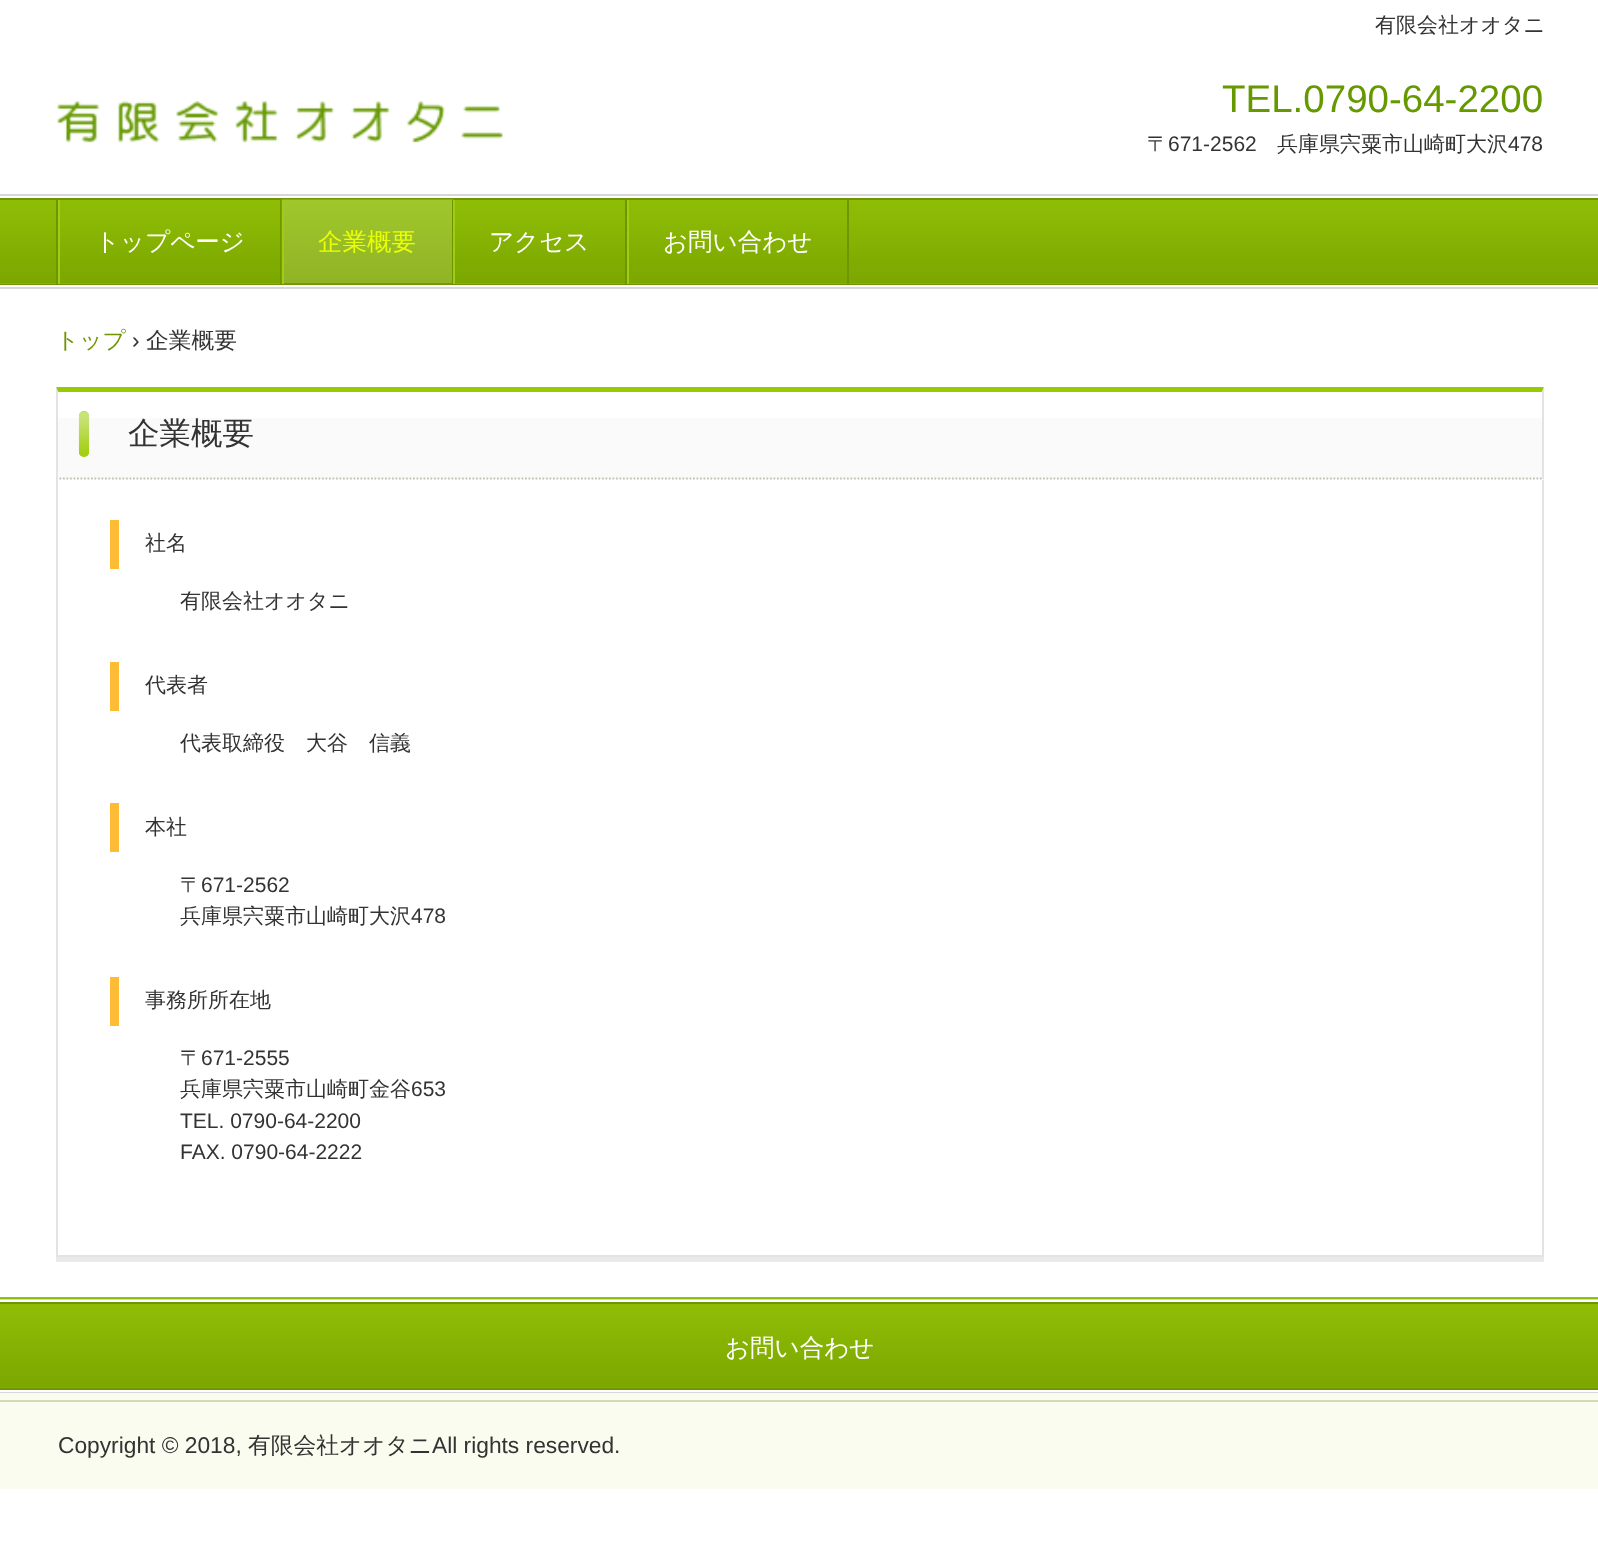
async function draw(canvas) {
  canvas.width = 1598
  canvas.height = 1559
  const ctx = canvas.getContext('2d')
  ctx.miterLimit = 4
  ctx.fontKerning = 'normal'
  async function loadImage(src) {
    const img = new Image()
    img.src = src
    await img.decode()
    return img
  }

  ctx.fillStyle = '#fff'
  ctx.fillRect(0, 0, 1598, 1559)
  ctx.font = '500 21px WenQuanYi Zen Hei'
  ctx.fillStyle = '#333'
  ctx.fillText('有限会社オオタニ', 1375, 32)
  ctx.drawImage(await loadImage('image0.png'), 57, 101, 446, 42)
  ctx.font = '38.5px Liberation Sans'
  ctx.fillStyle = '#690'
  ctx.fillText('TEL.0790-64-2200', 1222, 112)
  ctx.font = '500 21px WenQuanYi Zen Hei'
  ctx.fillStyle = '#333'
  ctx.fillText('〒', 1147, 151)
  ctx.font = '21px Liberation Sans'
  ctx.fillText('671-2562', 1168, 151)
  ctx.font = '500 21px WenQuanYi Zen Hei'
  ctx.fillText('兵庫県宍粟市山崎町大沢', 1277, 151)
  ctx.font = '21px Liberation Sans'
  ctx.fillText('478', 1508, 151)
  ctx.drawImage(await loadImage('image1.png'), 0, 200, 1598, 84)
  ctx.fillStyle = '#d7d7d7'
  ctx.fillRect(0, 194, 1598, 2)
  ctx.fillRect(0, 287, 1598, 2)
  ctx.fillStyle = '#6f9501'
  ctx.fillRect(0, 198, 1598, 2)
  ctx.fillRect(56, 200, 2, 84)
  ctx.fillRect(280, 200, 2, 84)
  ctx.fillStyle = '#9ecd12'
  ctx.fillRect(58, 200, 2, 84)
  ctx.font = '500 24.5px WenQuanYi Zen Hei'
  ctx.fillStyle = '#fff'
  ctx.fillText('トップページ', 95, 250)
  ctx.fillStyle = '#0000004d'
  ctx.fillRect(284, 283, 168, 1)
  ctx.drawImage(await loadImage('image2.png'), 281, 199, 173, 85)
  ctx.fillStyle = '#6f9501'
  ctx.fillRect(452, 200, 1, 84)
  ctx.fillStyle = '#9ecd12'
  ctx.fillRect(282, 200, 2, 84)
  ctx.fillStyle = '#eaff01'
  ctx.fillText('企業概要', 318, 250)
  ctx.fillStyle = '#6f9501'
  ctx.fillRect(625, 200, 2, 84)
  ctx.fillStyle = '#9ecd12'
  ctx.fillRect(453, 200, 2, 84)
  ctx.fillStyle = '#fff'
  ctx.fillText('アクセス', 489, 250)
  ctx.fillStyle = '#6f9501'
  ctx.fillRect(847, 200, 2, 84)
  ctx.fillStyle = '#9ecd12'
  ctx.fillRect(627, 200, 2, 84)
  ctx.fillStyle = '#fff'
  ctx.fillText('お問い合わせ', 663, 250)
  ctx.fillStyle = '#6f9501'
  ctx.fillRect(0, 284, 1598, 1)
  ctx.font = '500 22.75px WenQuanYi Zen Hei'
  ctx.fillStyle = '#6f9502'
  ctx.fillText('トップ', 56, 348)
  ctx.font = '22.75px Liberation Sans'
  ctx.fillStyle = '#333'
  ctx.fillText('›', 132, 348)
  ctx.font = '500 22.75px WenQuanYi Zen Hei'
  ctx.fillText('企業概要', 146, 348)
  ctx.fillStyle = '#fafafa'
  ctx.fillRect(57, 418, 1486, 61)
  ctx.fillStyle = '#97ca00'
  ctx.beginPath()
  ctx.moveTo(56, 387)
  ctx.lineTo(1544, 387)
  ctx.lineTo(1542, 392)
  ctx.lineTo(58, 392)
  ctx.closePath()
  ctx.fill()
  ctx.fillStyle = '#e3e3e3'
  ctx.beginPath()
  ctx.moveTo(1544, 387)
  ctx.lineTo(1544, 480)
  ctx.lineTo(1542, 478)
  ctx.lineTo(1542, 392)
  ctx.closePath()
  ctx.fill()
  ctx.beginPath()
  ctx.moveTo(56, 478.5)
  ctx.lineTo(1543.5, 478.5)
  ctx.strokeStyle = '#c3c0b3'
  ctx.lineWidth = 1.8
  ctx.setLineDash([1.75, 1.75])
  ctx.stroke()
  ctx.beginPath()
  ctx.moveTo(56, 480)
  ctx.lineTo(56, 387)
  ctx.lineTo(58, 392)
  ctx.lineTo(58, 478)
  ctx.closePath()
  ctx.fill()
  ctx.fillStyle = '#a4d119'
  ctx.beginPath()
  ctx.roundRect(79, 411, 10, 46, 5)
  ctx.fill()
  ctx.drawImage(await loadImage('image3.png'), 78, 411, 12, 46)
  ctx.font = '500 31.5px WenQuanYi Zen Hei'
  ctx.fillStyle = '#333'
  ctx.fillText('企業概要', 128, 444)
  ctx.fillStyle = '#eaeaea'
  ctx.beginPath()
  ctx.moveTo(56, 1256)
  ctx.lineTo(56, 1262)
  ctx.lineTo(1544, 1262)
  ctx.lineTo(1544, 485)
  ctx.lineTo(1544, 1256)
  ctx.closePath()
  ctx.fill()
  ctx.fillStyle = '#e3e3e3'
  ctx.fillRect(1542, 480, 2, 777)
  ctx.fillRect(56, 1255, 1488, 2)
  ctx.fillRect(56, 480, 2, 777)
  ctx.fillStyle = '#fdbb36'
  ctx.fillRect(110, 520, 9, 49)
  ctx.font = '500 21px WenQuanYi Zen Hei'
  ctx.fillStyle = '#333'
  ctx.fillText('社名', 145, 550)
  ctx.fillText('有限会社オオタニ', 180, 608)
  ctx.fillStyle = '#fdbb36'
  ctx.fillRect(110, 662, 9, 49)
  ctx.fillStyle = '#333'
  ctx.fillText('代表者', 145, 692)
  ctx.fillText('代表取締役　大谷　信義', 180, 750)
  ctx.fillStyle = '#fdbb36'
  ctx.fillRect(110, 803, 9, 49)
  ctx.fillStyle = '#333'
  ctx.fillText('本社', 145, 834)
  ctx.fillText('〒', 180, 892)
  ctx.font = '21px Liberation Sans'
  ctx.fillText('671-2562', 201, 892)
  ctx.font = '500 21px WenQuanYi Zen Hei'
  ctx.fillText('兵庫県宍粟市山崎町大沢', 180, 923)
  ctx.font = '21px Liberation Sans'
  ctx.fillText('478', 411, 923)
  ctx.fillStyle = '#fdbb36'
  ctx.fillRect(110, 977, 9, 49)
  ctx.font = '500 21px WenQuanYi Zen Hei'
  ctx.fillStyle = '#333'
  ctx.fillText('事務所所在地', 145, 1007)
  ctx.fillText('〒', 180, 1065)
  ctx.font = '21px Liberation Sans'
  ctx.fillText('671-2555', 201, 1065)
  ctx.font = '500 21px WenQuanYi Zen Hei'
  ctx.fillText('兵庫県宍粟市山崎町金谷', 180, 1096)
  ctx.font = '21px Liberation Sans'
  ctx.fillText('653', 411, 1096)
  ctx.fillText('TEL. 0790-64-2200', 180, 1128)
  ctx.fillText('FAX. 0790-64-2222', 180, 1159)
  ctx.fillStyle = '#f9fcee'
  ctx.fillRect(0, 1393, 1598, 96)
  ctx.fillStyle = '#97ca00'
  ctx.fillRect(0, 1297, 1598, 2)
  ctx.drawImage(await loadImage('image4.png'), 0, 1298, 1598, 90)
  ctx.fillStyle = '#d7d7d7'
  ctx.fillRect(0, 1299, 1598, 1)
  ctx.fillRect(0, 1392, 1598, 1)
  ctx.fillStyle = '#fff'
  ctx.fillRect(0, 1300, 1598, 2)
  ctx.fillStyle = '#6f9501'
  ctx.fillRect(0, 1302, 1598, 2)
  ctx.font = '500 24.5px WenQuanYi Zen Hei'
  ctx.fillStyle = '#fff'
  ctx.fillText('お問い合わせ', 725, 1356)
  ctx.fillStyle = '#6f9501'
  ctx.fillRect(0, 1388, 1598, 2)
  ctx.fillStyle = '#d0dbb1'
  ctx.fillRect(0, 1400, 1598, 2)
  ctx.font = '22.75px Liberation Sans'
  ctx.fillStyle = '#333'
  ctx.fillText('Copyright © 2018,', 58, 1453)
  ctx.font = '500 22.75px WenQuanYi Zen Hei'
  ctx.fillText('有限会社オオタニ', 248, 1453)
  ctx.font = '22.75px Liberation Sans'
  ctx.fillText('All rights reserved.', 432, 1453)
}

draw(document.querySelector('canvas'))
